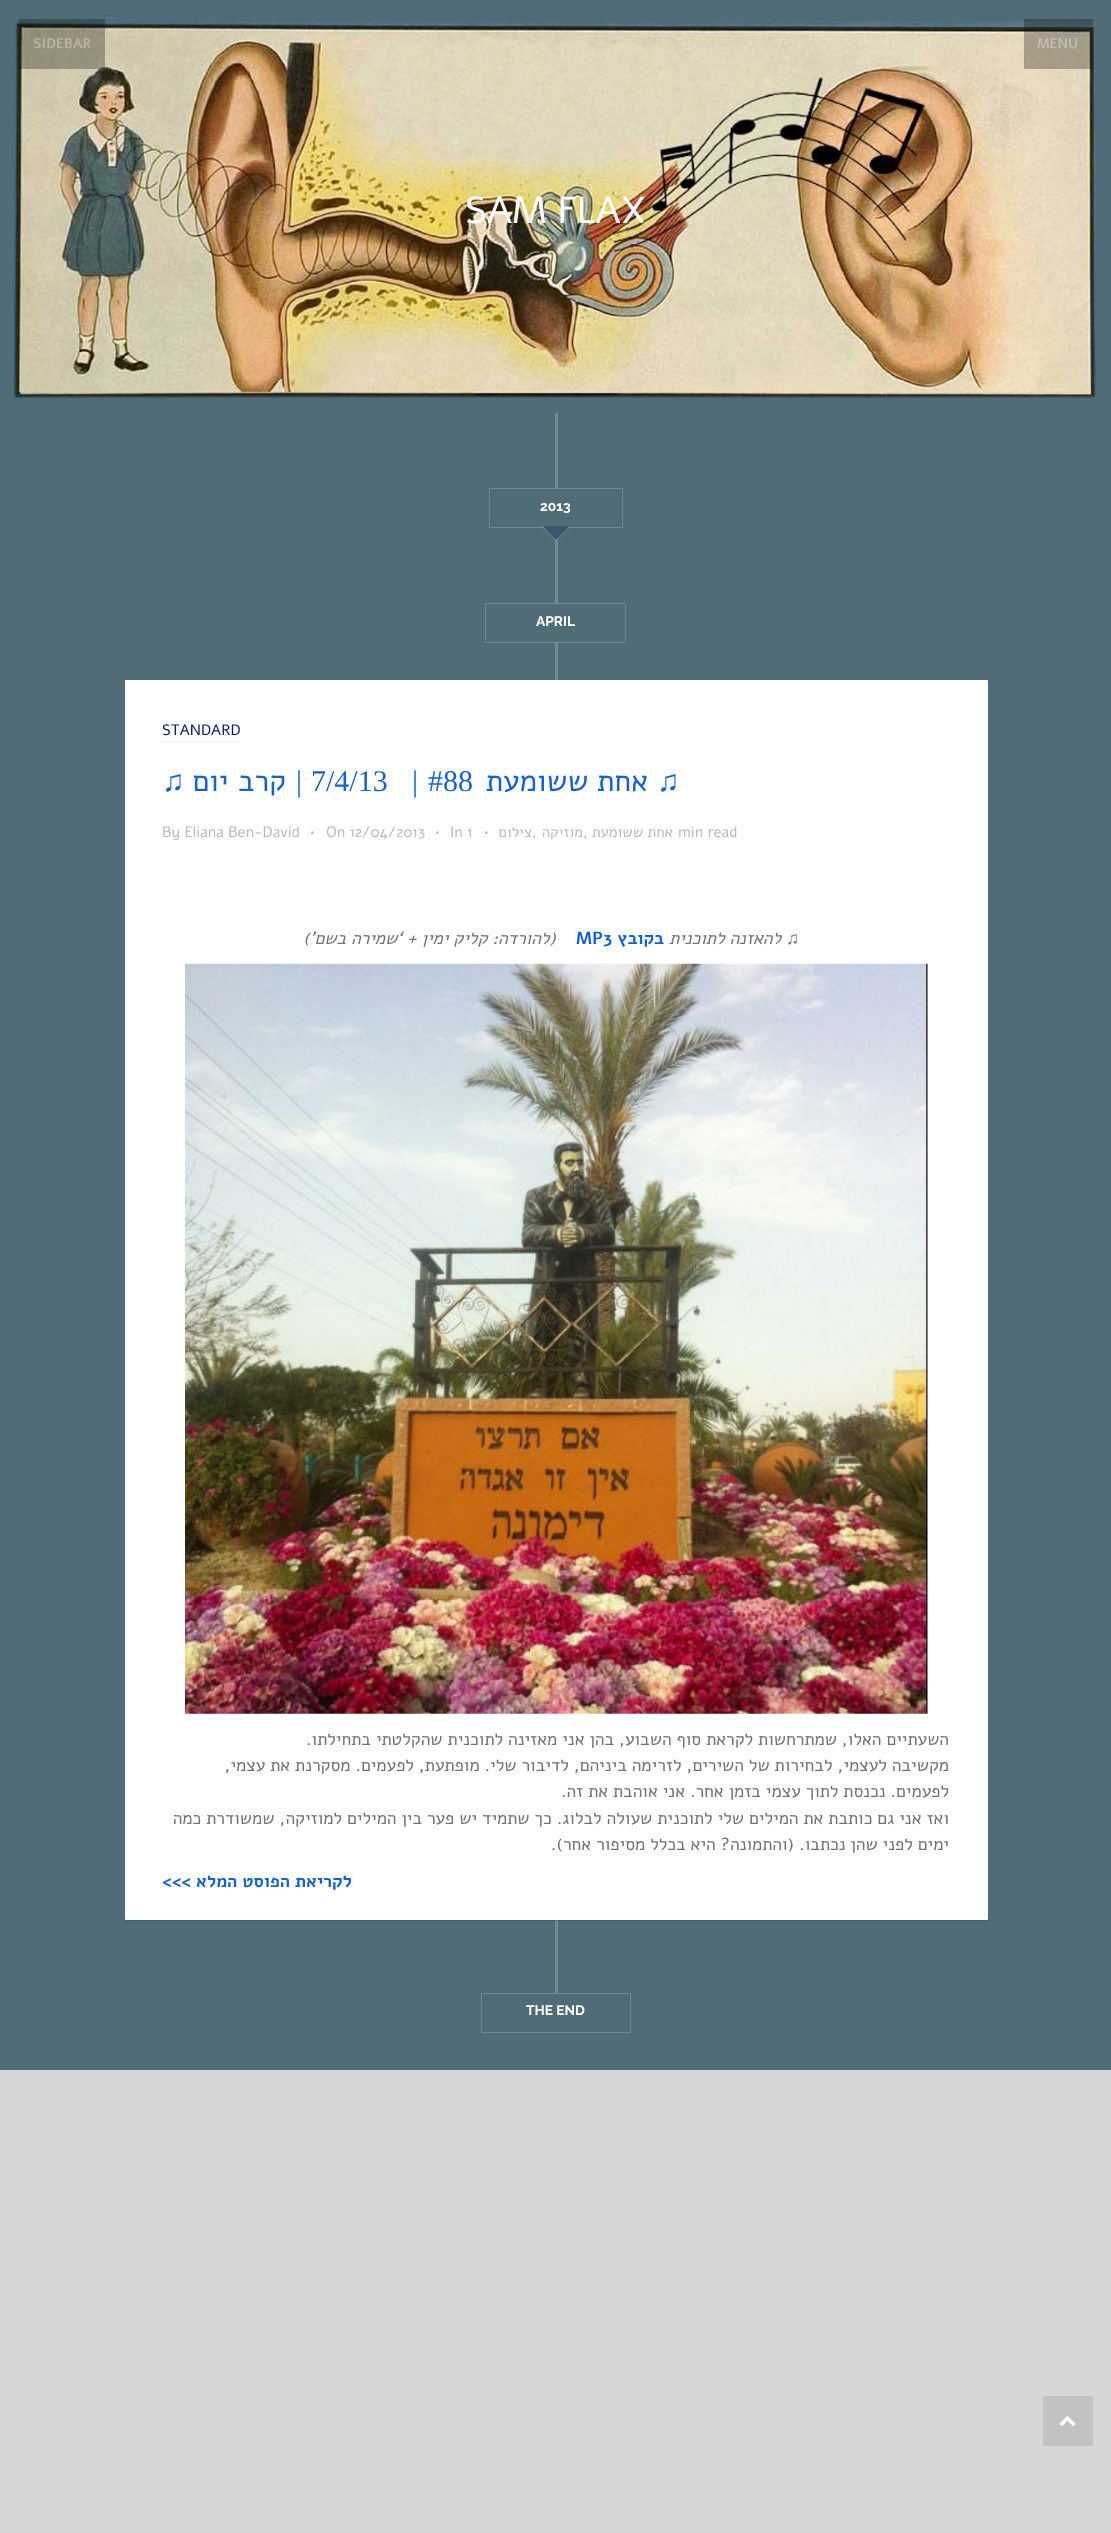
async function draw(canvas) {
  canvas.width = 1111
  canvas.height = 2533
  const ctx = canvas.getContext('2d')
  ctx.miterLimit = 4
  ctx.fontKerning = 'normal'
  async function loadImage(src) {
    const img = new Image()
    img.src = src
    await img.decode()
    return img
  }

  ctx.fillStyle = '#d6d6d6'
  ctx.fillRect(0, 0, 1111, 2533)
  ctx.fillStyle = '#506c77'
  ctx.fillRect(0, 0, 1111, 2070)
  ctx.drawImage(await loadImage('image0.png'), 13, 15, 1083, 384)
  ctx.fillStyle = '#1111114d'
  ctx.fillRect(1024, 19, 69, 50)
  ctx.font = 'bold 13.75px Alef'
  ctx.fillStyle = '#c0bbad'
  ctx.fillText('MENU', 1037, 48)
  ctx.fillStyle = '#1111114d'
  ctx.fillRect(19, 19, 86, 50)
  ctx.fillStyle = '#b6b3a5'
  ctx.fillText('SIDEBAR', 33, 48)
  ctx.font = '37.5px Alef'
  ctx.fillStyle = '#fff'
  ctx.fillText('SAM FLAX', 465, 223)
  ctx.fillStyle = '#738992'
  ctx.fillRect(555, 413, 3, 1582)
  ctx.fillStyle = '#506c77'
  ctx.beginPath()
  ctx.roundRect(489.5, 488.5, 133, 39, 0.5)
  ctx.fill()
  ctx.strokeStyle = '#738992'
  ctx.stroke()
  ctx.font = 'bold 13.75px Raleway'
  ctx.fillStyle = '#fff'
  ctx.fillText('2013', 540, 511)
  ctx.fillStyle = '#ffffff33'
  ctx.beginPath()
  ctx.moveTo(541, 526)
  ctx.lineTo(571, 526)
  ctx.lineTo(556, 541)
  ctx.closePath()
  ctx.fill()
  ctx.fillStyle = '#3e5771'
  ctx.beginPath()
  ctx.moveTo(542.5, 526)
  ctx.lineTo(570, 526)
  ctx.lineTo(556, 540)
  ctx.closePath()
  ctx.fill()
  ctx.fillStyle = '#506c77'
  ctx.beginPath()
  ctx.roundRect(485.5, 603.5, 140, 39, 0.5)
  ctx.fill()
  ctx.stroke()
  ctx.fillStyle = '#fff'
  ctx.fillText('APRIL', 536, 626)
  ctx.fillStyle = '#00000026'
  ctx.filter = 'blur(0.5px)'
  ctx.beginPath()
  ctx.roundRect(125, 681, 863, 1240, 1)
  ctx.fill()
  ctx.filter = 'none'
  ctx.fillStyle = '#fff'
  ctx.beginPath()
  ctx.roundRect(125, 680, 863, 1240, 1)
  ctx.fill()
  ctx.fillStyle = '#efefef'
  ctx.fillRect(163, 741, 77, 1)
  ctx.font = '15px Alef'
  ctx.fillStyle = '#11186b'
  ctx.fillText('STANDARD', 162, 735)
  ctx.font = '30px Liberation Serif'
  ctx.fillStyle = '#1a63c3'
  ctx.fillText('♫', 657, 791)
  ctx.direction = 'rtl'
  ctx.font = '30px Alef'
  ctx.fillText('אחת ששומעת', 648, 791)
  ctx.direction = 'ltr'
  ctx.font = '30px Liberation Serif'
  ctx.fillText('#88', 428, 791)
  ctx.fillText('|', 412, 791)
  ctx.fillText('7/4/13', 311, 791)
  ctx.direction = 'rtl'
  ctx.fillText('|', 302, 791)
  ctx.wordSpacing = '1px'
  ctx.font = '30px Alef'
  ctx.fillText('קרב יום', 286, 791)
  ctx.wordSpacing = '0px'
  ctx.direction = 'ltr'
  ctx.font = '30px Liberation Serif'
  ctx.fillText('♫', 162, 791)
  ctx.font = '15px Alef'
  ctx.fillStyle = '#bbb'
  ctx.fillText('min read', 678, 837)
  ctx.direction = 'rtl'
  ctx.fillText('אחת ששומעת', 673, 837)
  ctx.fillText('מוזיקה', 583, 837)
  ctx.fillText('צילום', 532, 837)
  ctx.direction = 'ltr'
  ctx.fillText('•', 484, 837)
  ctx.fillText('In 1', 450, 837)
  ctx.fillText('•', 435, 837)
  ctx.fillText('On 12/04/2013', 326, 837)
  ctx.fillText('•', 310, 837)
  ctx.fillText('By Eliana Ben-David', 162, 837)
  ctx.fillText(',', 583, 837)
  ctx.fillText(',', 532, 837)
  ctx.font = 'italic bold 17.5px Liberation Sans'
  ctx.fillStyle = '#737373'
  ctx.fillText('♫', 786, 944)
  ctx.direction = 'rtl'
  ctx.font = 'italic 17.5px Alef'
  ctx.fillText('להאזנה לתוכנית', 781, 944)
  ctx.font = 'bold 17.5px Alef'
  ctx.fillStyle = '#1a63c3'
  ctx.fillText('בקובץ', 664, 944)
  ctx.direction = 'ltr'
  ctx.fillText('MP3', 576, 944)
  ctx.direction = 'rtl'
  ctx.font = 'italic 17.5px Alef'
  ctx.fillStyle = '#737373'
  ctx.fillText('(להורדה: קליק ימין + ‘שמירה בשם’)', 556, 944)
  ctx.drawImage(await loadImage('image1.png'), 185, 963, 743, 751)
  ctx.font = '17.5px Alef'
  ctx.fillText('השעתיים האלו, שמתרחשות לקראת סוף השבוע, בהן אני מאזינה לתוכנית שהקלטתי בתחילתו.', 949, 1745)
  ctx.fillText('מקשיבה לעצמי, לבחירות של השירים, לזרימה ביניהם, לדיבור שלי. מופתעת, לפעמים. מסקרנת את עצמי,', 949, 1771)
  ctx.fillText('לפעמים. נכנסת לתוך עצמי בזמן אחר. אני אוהבת את זה.', 949, 1797)
  ctx.fillText('ואז אני גם כותבת את המילים שלי לתוכנית שעולה לבלוג. כך שתמיד יש פער בין המילים למוזיקה, שמשודרת כמה', 949, 1824)
  ctx.fillText('ימים לפני שהן נכתבו. (והתמונה? היא בכלל מסיפור אחר).', 949, 1850)
  ctx.font = 'bold 17.5px Alef'
  ctx.fillStyle = '#1a63c3'
  ctx.fillText('לקריאת הפוסט המלא', 352, 1887)
  ctx.direction = 'ltr'
  ctx.fillText('<<<', 162, 1887)
  ctx.fillStyle = '#506c77'
  ctx.beginPath()
  ctx.roundRect(481.5, 1993.5, 149, 39, 0.5)
  ctx.fill()
  ctx.stroke()
  ctx.font = 'bold 13.75px Raleway'
  ctx.fillStyle = '#fff'
  ctx.fillText('THE END', 526, 2015)
  ctx.fillStyle = '#c2c2c2'
  ctx.fillRect(1043, 2396, 50, 50)
  ctx.drawImage(await loadImage('image2.png'), 1059, 2416, 17, 10)
}

draw(document.querySelector('canvas'))
